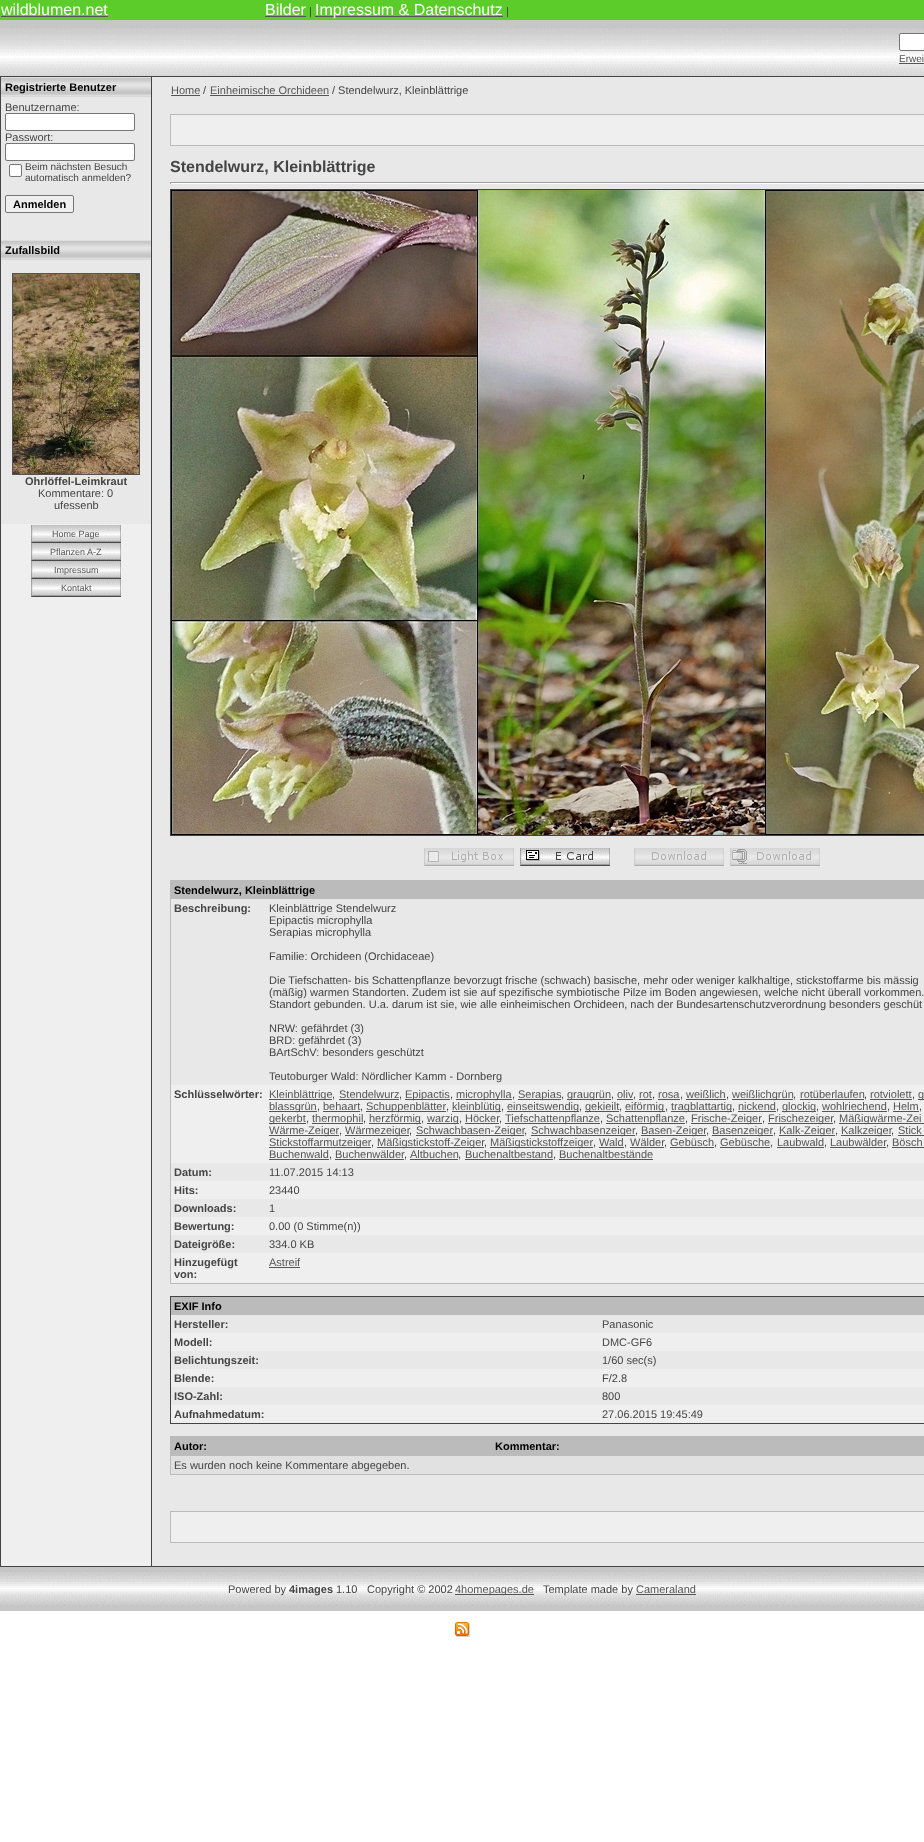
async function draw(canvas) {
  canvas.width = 924
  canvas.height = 1842
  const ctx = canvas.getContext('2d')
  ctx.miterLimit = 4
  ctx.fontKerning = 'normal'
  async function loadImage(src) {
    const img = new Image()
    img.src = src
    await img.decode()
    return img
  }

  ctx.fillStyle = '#fff'
  ctx.fillRect(0, 0, 924, 1842)
  ctx.fillStyle = '#5ccc2b'
  ctx.fillRect(0, 0, 924, 20)
  ctx.font = '16px Liberation Sans'
  ctx.fillStyle = '#fff'
  ctx.fillText('wildblumen.net', 1, 15)
  ctx.fillStyle = '#555'
  ctx.fillRect(1, 16, 107, 1)
  ctx.fillStyle = '#fff'
  ctx.fillText('Bilder', 265, 15)
  ctx.fillStyle = '#555'
  ctx.fillRect(265, 16, 41, 1)
  ctx.font = '11px Liberation Sans'
  ctx.fillStyle = '#444'
  ctx.fillText('|', 309, 15)
  ctx.fillStyle = '#555'
  ctx.fillRect(315, 16, 188, 1)
  ctx.font = '16px Liberation Sans'
  ctx.fillStyle = '#fff'
  ctx.fillText('Impressum & Datenschutz', 315, 15)
  ctx.font = '11px Liberation Sans'
  ctx.fillStyle = '#444'
  ctx.fillText('|', 506, 15)
  ctx.drawImage(await loadImage('image0.png'), 0, 20, 547, 56)
  ctx.drawImage(await loadImage('image1.png'), 547, 20, 377, 56)
  ctx.fillStyle = '#fff'
  ctx.beginPath()
  ctx.roundRect(899.5, 33.5, 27, 17, 1.5)
  ctx.fill()
  ctx.strokeStyle = '#767676'
  ctx.stroke()
  ctx.font = '10px Liberation Sans'
  ctx.fillStyle = '#555'
  ctx.fillText('Erwei', 899, 62)
  ctx.fillRect(899, 63, 25, 1)
  ctx.fillStyle = '#444'
  ctx.fillRect(0, 76, 924, 1491)
  ctx.fillStyle = '#e8e8e8'
  ctx.fillRect(152, 77, 772, 1489)
  ctx.fillStyle = '#efefef'
  ctx.fillRect(1, 524, 150, 1042)
  ctx.drawImage(await loadImage('image2.png'), 1, 77, 150, 20)
  ctx.font = 'bold 11px Liberation Sans'
  ctx.fillStyle = '#000'
  ctx.fillText('Registrierte Benutzer', 5, 91)
  ctx.fillStyle = '#e8e8e8'
  ctx.fillRect(1, 97, 150, 143)
  ctx.font = '11px Liberation Sans'
  ctx.fillStyle = '#444'
  ctx.fillText('Benutzername:', 5, 111)
  ctx.fillStyle = '#fff'
  ctx.beginPath()
  ctx.roundRect(5.5, 113.5, 129, 17, 1.5)
  ctx.fill()
  ctx.stroke()
  ctx.fillStyle = '#444'
  ctx.fillText('Passwort:', 5, 141)
  ctx.fillStyle = '#fff'
  ctx.beginPath()
  ctx.roundRect(5.5, 143.5, 129, 17, 1.5)
  ctx.fill()
  ctx.stroke()
  ctx.beginPath()
  ctx.roundRect(9.5, 164.5, 12, 12, 1.5)
  ctx.fill()
  ctx.stroke()
  ctx.font = '10px Liberation Sans'
  ctx.fillStyle = '#444'
  ctx.fillText('Beim nächsten Besuch', 25, 170)
  ctx.fillText('automatisch anmelden?', 25, 181)
  ctx.fillStyle = '#efefef'
  ctx.beginPath()
  ctx.roundRect(5.5, 195.5, 68, 17, 1.5)
  ctx.fill()
  ctx.stroke()
  ctx.font = 'bold 11px Liberation Sans'
  ctx.fillStyle = '#000'
  ctx.fillText('Anmelden', 13, 208)
  ctx.drawImage(await loadImage('image2.png'), 1, 240, 150, 20)
  ctx.fillText('Zufallsbild', 5, 254)
  ctx.fillStyle = '#e8e8e8'
  ctx.fillRect(1, 260, 150, 264)
  ctx.strokeStyle = '#555'
  ctx.strokeRect(12.5, 273.5, 127, 201)
  ctx.drawImage(await loadImage('image3.png'), 13, 274, 126, 200)
  ctx.fillStyle = '#444'
  ctx.fillText('Ohrlöffel-Leimkraut', 25, 485)
  ctx.font = '11px Liberation Sans'
  ctx.fillText('Kommentare: 0', 38, 497)
  ctx.fillText('ufessenb', 54, 509)
  ctx.drawImage(await loadImage('image4.png'), 31, 525, 90, 18)
  ctx.font = '9px Liberation Sans'
  ctx.fillStyle = '#555'
  ctx.fillText('Home Page', 52, 537)
  ctx.drawImage(await loadImage('image4.png'), 31, 543, 90, 18)
  ctx.fillText('Pflanzen A-Z', 50, 555)
  ctx.drawImage(await loadImage('image4.png'), 31, 561, 90, 18)
  ctx.fillText('Impressum', 54, 573)
  ctx.drawImage(await loadImage('image4.png'), 31, 579, 90, 18)
  ctx.fillText('Kontakt', 61, 591)
  ctx.font = '11px Liberation Sans'
  ctx.fillText('Home', 171, 94)
  ctx.fillRect(171, 95, 29, 1)
  ctx.fillStyle = '#444'
  ctx.fillText('/', 203, 94)
  ctx.fillStyle = '#555'
  ctx.fillText('Einheimische Orchideen', 210, 94)
  ctx.fillRect(210, 95, 119, 1)
  ctx.fillStyle = '#444'
  ctx.fillText('/ Stendelwurz, Kleinblättrige', 332, 94)
  ctx.fillStyle = '#bbb'
  ctx.fillRect(170, 114, 754, 32)
  ctx.fillStyle = '#efefef'
  ctx.fillRect(171, 115, 753, 30)
  ctx.font = 'bold 16px Liberation Sans'
  ctx.fillStyle = '#444'
  ctx.fillText('Stendelwurz, Kleinblättrige', 170, 172)
  ctx.fillStyle = '#fff'
  ctx.fillRect(170, 183, 754, 1)
  ctx.fillStyle = '#9f9f9f'
  ctx.fillRect(170, 182, 754, 1)
  ctx.fillRect(170, 182, 1, 2)
  ctx.strokeStyle = '#444'
  ctx.strokeRect(170.5, 189.5, 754, 646)
  ctx.drawImage(await loadImage('image5.png'), 171, 190, 753, 645)
  ctx.drawImage(await loadImage('image6.png'), 424, 848, 90, 18)
  ctx.drawImage(await loadImage('image7.png'), 520, 848, 90, 18)
  ctx.drawImage(await loadImage('image8.png'), 634, 848, 90, 18)
  ctx.drawImage(await loadImage('image9.png'), 730, 848, 90, 18)
  ctx.fillStyle = '#bbb'
  ctx.fillRect(170, 880, 754, 404)
  ctx.font = 'bold 11px Liberation Sans'
  ctx.fillStyle = '#000'
  ctx.fillText('Stendelwurz, Kleinblättrige', 174, 894)
  ctx.fillStyle = '#e8e8e8'
  ctx.fillRect(171, 899, 753, 186)
  ctx.fillStyle = '#444'
  ctx.fillText('Beschreibung:', 174, 912)
  ctx.font = '11px Liberation Sans'
  ctx.fillText('Kleinblättrige Stendelwurz', 269, 912)
  ctx.fillText('Epipactis microphylla', 269, 924)
  ctx.fillText('Serapias microphylla', 269, 936)
  ctx.fillText('Familie: Orchideen (Orchidaceae)', 269, 960)
  ctx.fillText('Die Tiefschatten- bis Schattenpflanze bevorzugt frische (schwach) basische, mehr oder weniger kalkhaltige, stickstoffarme bis mässig', 269, 984)
  ctx.fillText('(mäßig) warmen Standorten. Zudem ist sie auf spezifische symbiotische Pilze im Boden angewiesen, welche nicht überall vorkommen.', 269, 996)
  ctx.fillText('Standort gebunden. U.a. darum ist sie, wie alle einheimischen Orchideen, nach der Bundesartenschutzverordnung besonders geschüt', 269, 1008)
  ctx.fillText('NRW: gefährdet (3)', 269, 1032)
  ctx.fillText('BRD: gefährdet (3)', 269, 1044)
  ctx.fillText('BArtSchV: besonders geschützt', 269, 1056)
  ctx.fillText('Teutoburger Wald: Nördlicher Kamm - Dornberg', 269, 1080)
  ctx.fillStyle = '#efefef'
  ctx.fillRect(171, 1085, 753, 78)
  ctx.font = 'bold 11px Liberation Sans'
  ctx.fillStyle = '#444'
  ctx.fillText('Schlüsselwörter:', 174, 1098)
  ctx.fillStyle = '#555'
  ctx.fillRect(269, 1099, 63, 1)
  ctx.font = '11px Liberation Sans'
  ctx.fillText('Kleinblättrige', 269, 1098)
  ctx.fillStyle = '#444'
  ctx.fillText(',', 332, 1098)
  ctx.fillStyle = '#555'
  ctx.fillText('Stendelwurz', 339, 1098)
  ctx.fillRect(339, 1099, 60, 1)
  ctx.fillStyle = '#444'
  ctx.fillText(',', 399, 1098)
  ctx.fillStyle = '#555'
  ctx.fillRect(405, 1099, 45, 1)
  ctx.fillText('Epipactis', 405, 1098)
  ctx.fillStyle = '#444'
  ctx.fillText(',', 450, 1098)
  ctx.fillStyle = '#555'
  ctx.fillRect(456, 1099, 56, 1)
  ctx.fillText('microphylla', 456, 1098)
  ctx.fillStyle = '#444'
  ctx.fillText(',', 512, 1098)
  ctx.fillStyle = '#555'
  ctx.fillRect(518, 1099, 43, 1)
  ctx.fillText('Serapias', 518, 1098)
  ctx.fillStyle = '#444'
  ctx.fillText(',', 561, 1098)
  ctx.fillStyle = '#555'
  ctx.fillRect(567, 1099, 44, 1)
  ctx.fillText('graugrün', 567, 1098)
  ctx.fillStyle = '#444'
  ctx.fillText(',', 611, 1098)
  ctx.fillStyle = '#555'
  ctx.fillText('oliv', 617, 1098)
  ctx.fillRect(617, 1099, 16, 1)
  ctx.fillStyle = '#444'
  ctx.fillText(',', 633, 1098)
  ctx.fillStyle = '#555'
  ctx.fillText('rot', 639, 1098)
  ctx.fillRect(639, 1099, 13, 1)
  ctx.fillStyle = '#444'
  ctx.fillText(',', 652, 1098)
  ctx.fillStyle = '#555'
  ctx.fillText('rosa', 658, 1098)
  ctx.fillRect(658, 1099, 22, 1)
  ctx.fillStyle = '#444'
  ctx.fillText(',', 680, 1098)
  ctx.fillStyle = '#555'
  ctx.fillText('weißlich', 686, 1098)
  ctx.fillRect(686, 1099, 40, 1)
  ctx.fillStyle = '#444'
  ctx.fillText(',', 726, 1098)
  ctx.fillStyle = '#555'
  ctx.fillRect(732, 1099, 61, 1)
  ctx.fillText('weißlichgrün', 732, 1098)
  ctx.fillStyle = '#444'
  ctx.fillText(',', 793, 1098)
  ctx.fillStyle = '#555'
  ctx.fillText('rotüberlaufen', 800, 1098)
  ctx.fillRect(800, 1099, 64, 1)
  ctx.fillStyle = '#444'
  ctx.fillText(',', 864, 1098)
  ctx.fillStyle = '#555'
  ctx.fillText('rotviolett', 870, 1098)
  ctx.fillRect(870, 1099, 42, 1)
  ctx.fillStyle = '#444'
  ctx.fillText(',', 912, 1098)
  ctx.fillStyle = '#555'
  ctx.fillRect(918, 1099, 6, 1)
  ctx.fillText('g', 918, 1098)
  ctx.fillRect(269, 1111, 48, 1)
  ctx.fillText('blassgrün', 269, 1110)
  ctx.fillStyle = '#444'
  ctx.fillText(',', 317, 1110)
  ctx.fillStyle = '#555'
  ctx.fillText('behaart', 323, 1110)
  ctx.fillRect(323, 1111, 37, 1)
  ctx.fillStyle = '#444'
  ctx.fillText(',', 360, 1110)
  ctx.fillStyle = '#555'
  ctx.fillRect(366, 1111, 80, 1)
  ctx.fillText('Schuppenblätter', 366, 1110)
  ctx.fillRect(452, 1111, 49, 1)
  ctx.fillText('kleinblütig', 452, 1110)
  ctx.fillRect(507, 1111, 72, 1)
  ctx.fillText('einseitswendig', 507, 1110)
  ctx.fillRect(585, 1111, 34, 1)
  ctx.fillText('gekieilt', 585, 1110)
  ctx.fillRect(625, 1111, 40, 1)
  ctx.fillText('eiförmig', 625, 1110)
  ctx.fillRect(671, 1111, 61, 1)
  ctx.fillText('tragblattartig', 671, 1110)
  ctx.fillText('nickend', 738, 1110)
  ctx.fillRect(738, 1111, 38, 1)
  ctx.fillRect(782, 1111, 34, 1)
  ctx.fillText('glockig', 782, 1110)
  ctx.fillText('wohlriechend', 822, 1110)
  ctx.fillRect(822, 1111, 65, 1)
  ctx.fillText('Helm', 893, 1110)
  ctx.fillRect(893, 1111, 26, 1)
  ctx.fillStyle = '#444'
  ctx.fillText(',', 446, 1110)
  ctx.fillText(',', 501, 1110)
  ctx.fillText(',', 579, 1110)
  ctx.fillText(',', 619, 1110)
  ctx.fillText(',', 665, 1110)
  ctx.fillText(',', 732, 1110)
  ctx.fillText(',', 776, 1110)
  ctx.fillText(',', 816, 1110)
  ctx.fillText(',', 887, 1110)
  ctx.fillText(',', 919, 1110)
  ctx.fillStyle = '#555'
  ctx.fillRect(269, 1123, 37, 1)
  ctx.fillText('gekerbt', 269, 1122)
  ctx.fillStyle = '#444'
  ctx.fillText(',', 306, 1122)
  ctx.fillStyle = '#555'
  ctx.fillRect(312, 1123, 51, 1)
  ctx.fillText('thermophil', 312, 1122)
  ctx.fillStyle = '#444'
  ctx.fillText(',', 363, 1122)
  ctx.fillStyle = '#555'
  ctx.fillRect(369, 1123, 52, 1)
  ctx.fillText('herzförmig', 369, 1122)
  ctx.fillStyle = '#444'
  ctx.fillText(',', 421, 1122)
  ctx.fillStyle = '#555'
  ctx.fillRect(427, 1123, 32, 1)
  ctx.fillText('warzig', 427, 1122)
  ctx.fillStyle = '#444'
  ctx.fillText(',', 459, 1122)
  ctx.fillStyle = '#555'
  ctx.fillText('Höcker', 465, 1122)
  ctx.fillRect(465, 1123, 34, 1)
  ctx.fillStyle = '#444'
  ctx.fillText(',', 499, 1122)
  ctx.fillStyle = '#555'
  ctx.fillRect(505, 1123, 95, 1)
  ctx.fillText('Tiefschattenpflanze', 505, 1122)
  ctx.fillStyle = '#444'
  ctx.fillText(',', 600, 1122)
  ctx.fillStyle = '#555'
  ctx.fillRect(606, 1123, 79, 1)
  ctx.fillText('Schattenpflanze', 606, 1122)
  ctx.fillStyle = '#444'
  ctx.fillText(',', 685, 1122)
  ctx.fillStyle = '#555'
  ctx.fillRect(691, 1123, 71, 1)
  ctx.fillText('Frische-Zeiger', 691, 1122)
  ctx.fillRect(768, 1123, 65, 1)
  ctx.fillText('Frischezeiger', 768, 1122)
  ctx.fillRect(839, 1123, 85, 1)
  ctx.fillText('Mäßigwärme-Zei', 839, 1122)
  ctx.fillStyle = '#444'
  ctx.fillText(',', 762, 1122)
  ctx.fillText(',', 833, 1122)
  ctx.fillStyle = '#555'
  ctx.fillRect(269, 1135, 70, 1)
  ctx.fillText('Wärme-Zeiger', 269, 1134)
  ctx.fillStyle = '#444'
  ctx.fillText(',', 339, 1134)
  ctx.fillStyle = '#555'
  ctx.fillRect(345, 1135, 64, 1)
  ctx.fillText('Wärmezeiger', 345, 1134)
  ctx.fillStyle = '#444'
  ctx.fillText(',', 409, 1134)
  ctx.fillStyle = '#555'
  ctx.fillRect(416, 1135, 108, 1)
  ctx.fillText('Schwachbasen-Zeiger', 416, 1134)
  ctx.fillStyle = '#444'
  ctx.fillText(',', 524, 1134)
  ctx.fillStyle = '#555'
  ctx.fillRect(531, 1135, 104, 1)
  ctx.fillText('Schwachbasenzeiger', 531, 1134)
  ctx.fillStyle = '#444'
  ctx.fillText(',', 635, 1134)
  ctx.fillStyle = '#555'
  ctx.fillRect(641, 1135, 65, 1)
  ctx.fillText('Basen-Zeiger', 641, 1134)
  ctx.fillStyle = '#444'
  ctx.fillText(',', 706, 1134)
  ctx.fillStyle = '#555'
  ctx.fillRect(712, 1135, 61, 1)
  ctx.fillText('Basenzeiger', 712, 1134)
  ctx.fillRect(779, 1135, 56, 1)
  ctx.fillText('Kalk-Zeiger', 779, 1134)
  ctx.fillRect(841, 1135, 50, 1)
  ctx.fillText('Kalkzeiger', 841, 1134)
  ctx.fillText('Stick', 898, 1134)
  ctx.fillRect(898, 1135, 26, 1)
  ctx.fillStyle = '#444'
  ctx.fillText(',', 773, 1134)
  ctx.fillText(',', 835, 1134)
  ctx.fillText(',', 891, 1134)
  ctx.fillStyle = '#555'
  ctx.fillRect(269, 1147, 102, 1)
  ctx.fillText('Stickstoffarmutzeiger', 269, 1146)
  ctx.fillRect(377, 1147, 107, 1)
  ctx.fillText('Mäßigstickstoff-Zeiger', 377, 1146)
  ctx.fillRect(490, 1147, 103, 1)
  ctx.fillText('Mäßigstickstoffzeiger', 490, 1146)
  ctx.fillText('Wald', 599, 1146)
  ctx.fillRect(599, 1147, 25, 1)
  ctx.fillText('Wälder', 630, 1146)
  ctx.fillRect(630, 1147, 34, 1)
  ctx.fillText('Gebüsch', 670, 1146)
  ctx.fillRect(670, 1147, 44, 1)
  ctx.fillText('Gebüsche', 720, 1146)
  ctx.fillRect(720, 1147, 50, 1)
  ctx.fillText('Laubwald', 777, 1146)
  ctx.fillRect(777, 1147, 47, 1)
  ctx.fillText('Laubwälder', 830, 1146)
  ctx.fillRect(830, 1147, 56, 1)
  ctx.fillText('Bösch', 892, 1146)
  ctx.fillRect(892, 1147, 32, 1)
  ctx.fillStyle = '#444'
  ctx.fillText(',', 371, 1146)
  ctx.fillText(',', 484, 1146)
  ctx.fillText(',', 593, 1146)
  ctx.fillText(',', 624, 1146)
  ctx.fillText(',', 664, 1146)
  ctx.fillText(',', 714, 1146)
  ctx.fillText(',', 770, 1146)
  ctx.fillText(',', 824, 1146)
  ctx.fillText(',', 886, 1146)
  ctx.fillStyle = '#555'
  ctx.fillText('Buchenwald', 269, 1158)
  ctx.fillRect(269, 1159, 60, 1)
  ctx.fillStyle = '#444'
  ctx.fillText(',', 329, 1158)
  ctx.fillStyle = '#555'
  ctx.fillText('Buchenwälder', 335, 1158)
  ctx.fillRect(335, 1159, 69, 1)
  ctx.fillStyle = '#444'
  ctx.fillText(',', 404, 1158)
  ctx.fillStyle = '#555'
  ctx.fillText('Altbuchen', 410, 1158)
  ctx.fillRect(410, 1159, 48, 1)
  ctx.fillStyle = '#444'
  ctx.fillText(',', 458, 1158)
  ctx.fillStyle = '#555'
  ctx.fillText('Buchenaltbestand', 465, 1158)
  ctx.fillRect(465, 1159, 88, 1)
  ctx.fillStyle = '#444'
  ctx.fillText(',', 553, 1158)
  ctx.fillStyle = '#555'
  ctx.fillText('Buchenaltbestände', 559, 1158)
  ctx.fillRect(559, 1159, 94, 1)
  ctx.fillStyle = '#e8e8e8'
  ctx.fillRect(171, 1163, 753, 18)
  ctx.font = 'bold 11px Liberation Sans'
  ctx.fillStyle = '#444'
  ctx.fillText('Datum:', 174, 1176)
  ctx.font = '11px Liberation Sans'
  ctx.fillText('11.07.2015 14:13', 269, 1176)
  ctx.fillStyle = '#efefef'
  ctx.fillRect(171, 1181, 753, 18)
  ctx.font = 'bold 11px Liberation Sans'
  ctx.fillStyle = '#444'
  ctx.fillText('Hits:', 174, 1194)
  ctx.font = '11px Liberation Sans'
  ctx.fillText('23440', 269, 1194)
  ctx.fillStyle = '#e8e8e8'
  ctx.fillRect(171, 1199, 753, 18)
  ctx.font = 'bold 11px Liberation Sans'
  ctx.fillStyle = '#444'
  ctx.fillText('Downloads:', 174, 1212)
  ctx.font = '11px Liberation Sans'
  ctx.fillText('1', 269, 1212)
  ctx.fillStyle = '#efefef'
  ctx.fillRect(171, 1217, 753, 18)
  ctx.font = 'bold 11px Liberation Sans'
  ctx.fillStyle = '#444'
  ctx.fillText('Bewertung:', 174, 1230)
  ctx.font = '11px Liberation Sans'
  ctx.fillText('0.00 (0 Stimme(n))', 269, 1230)
  ctx.fillStyle = '#e8e8e8'
  ctx.fillRect(171, 1235, 753, 18)
  ctx.font = 'bold 11px Liberation Sans'
  ctx.fillStyle = '#444'
  ctx.fillText('Dateigröße:', 174, 1248)
  ctx.font = '11px Liberation Sans'
  ctx.fillText('334.0 KB', 269, 1248)
  ctx.fillStyle = '#efefef'
  ctx.fillRect(171, 1253, 753, 30)
  ctx.font = 'bold 11px Liberation Sans'
  ctx.fillStyle = '#444'
  ctx.fillText('Hinzugefügt', 174, 1266)
  ctx.fillText('von:', 174, 1278)
  ctx.font = '11px Liberation Sans'
  ctx.fillStyle = '#555'
  ctx.fillText('Astreif', 269, 1266)
  ctx.fillRect(269, 1267, 31, 1)
  ctx.fillStyle = '#444'
  ctx.fillRect(170, 1296, 754, 128)
  ctx.fillStyle = '#bbb'
  ctx.fillRect(171, 1297, 753, 18)
  ctx.font = 'bold 11px Liberation Sans'
  ctx.fillStyle = '#000'
  ctx.fillText('EXIF Info', 174, 1310)
  ctx.fillStyle = '#e8e8e8'
  ctx.fillRect(171, 1315, 753, 18)
  ctx.fillStyle = '#444'
  ctx.fillText('Hersteller:', 174, 1328)
  ctx.font = '11px Liberation Sans'
  ctx.fillText('Panasonic', 602, 1328)
  ctx.fillStyle = '#efefef'
  ctx.fillRect(171, 1333, 753, 18)
  ctx.font = 'bold 11px Liberation Sans'
  ctx.fillStyle = '#444'
  ctx.fillText('Modell:', 174, 1346)
  ctx.font = '11px Liberation Sans'
  ctx.fillText('DMC-GF6', 602, 1346)
  ctx.fillStyle = '#e8e8e8'
  ctx.fillRect(171, 1351, 753, 18)
  ctx.font = 'bold 11px Liberation Sans'
  ctx.fillStyle = '#444'
  ctx.fillText('Belichtungszeit:', 174, 1364)
  ctx.font = '11px Liberation Sans'
  ctx.fillText('1/60 sec(s)', 602, 1364)
  ctx.fillStyle = '#efefef'
  ctx.fillRect(171, 1369, 753, 18)
  ctx.font = 'bold 11px Liberation Sans'
  ctx.fillStyle = '#444'
  ctx.fillText('Blende:', 174, 1382)
  ctx.font = '11px Liberation Sans'
  ctx.fillText('F/2.8', 602, 1382)
  ctx.fillStyle = '#e8e8e8'
  ctx.fillRect(171, 1387, 753, 18)
  ctx.font = 'bold 11px Liberation Sans'
  ctx.fillStyle = '#444'
  ctx.fillText('ISO-Zahl:', 174, 1400)
  ctx.font = '11px Liberation Sans'
  ctx.fillText('800', 602, 1400)
  ctx.fillStyle = '#efefef'
  ctx.fillRect(171, 1405, 753, 18)
  ctx.font = 'bold 11px Liberation Sans'
  ctx.fillStyle = '#444'
  ctx.fillText('Aufnahmedatum:', 174, 1418)
  ctx.font = '11px Liberation Sans'
  ctx.fillText('27.06.2015 19:45:49', 602, 1418)
  ctx.fillStyle = '#bbb'
  ctx.fillRect(170, 1436, 754, 39)
  ctx.font = 'bold 11px Liberation Sans'
  ctx.fillStyle = '#000'
  ctx.fillText('Autor:', 174, 1450)
  ctx.fillText('Kommentar:', 495, 1450)
  ctx.fillStyle = '#e1e1e1'
  ctx.fillRect(171, 1456, 753, 18)
  ctx.font = '11px Liberation Sans'
  ctx.fillStyle = '#444'
  ctx.fillText('Es wurden noch keine Kommentare abgegeben.', 174, 1469)
  ctx.fillStyle = '#bbb'
  ctx.fillRect(170, 1511, 754, 32)
  ctx.fillStyle = '#efefef'
  ctx.fillRect(171, 1512, 753, 30)
  ctx.drawImage(await loadImage('image10.png'), 0, 1567, 924, 44)
  ctx.fillStyle = '#444'
  ctx.fillText('Powered by', 228, 1593)
  ctx.font = 'bold 11px Liberation Sans'
  ctx.fillText('4images', 289, 1593)
  ctx.font = '11px Liberation Sans'
  ctx.fillText('1.10', 336, 1593)
  ctx.fillText('Copyright © 2002', 367, 1593)
  ctx.fillStyle = '#555'
  ctx.fillRect(455, 1594, 79, 1)
  ctx.fillText('4homepages.de', 455, 1593)
  ctx.fillStyle = '#444'
  ctx.fillText('Template made by', 543, 1593)
  ctx.fillStyle = '#555'
  ctx.fillText('Cameraland', 636, 1593)
  ctx.fillRect(636, 1594, 60, 1)
  ctx.drawImage(await loadImage('image11.png'), 455, 1622, 15, 15)
}

draw(document.querySelector('canvas'))
